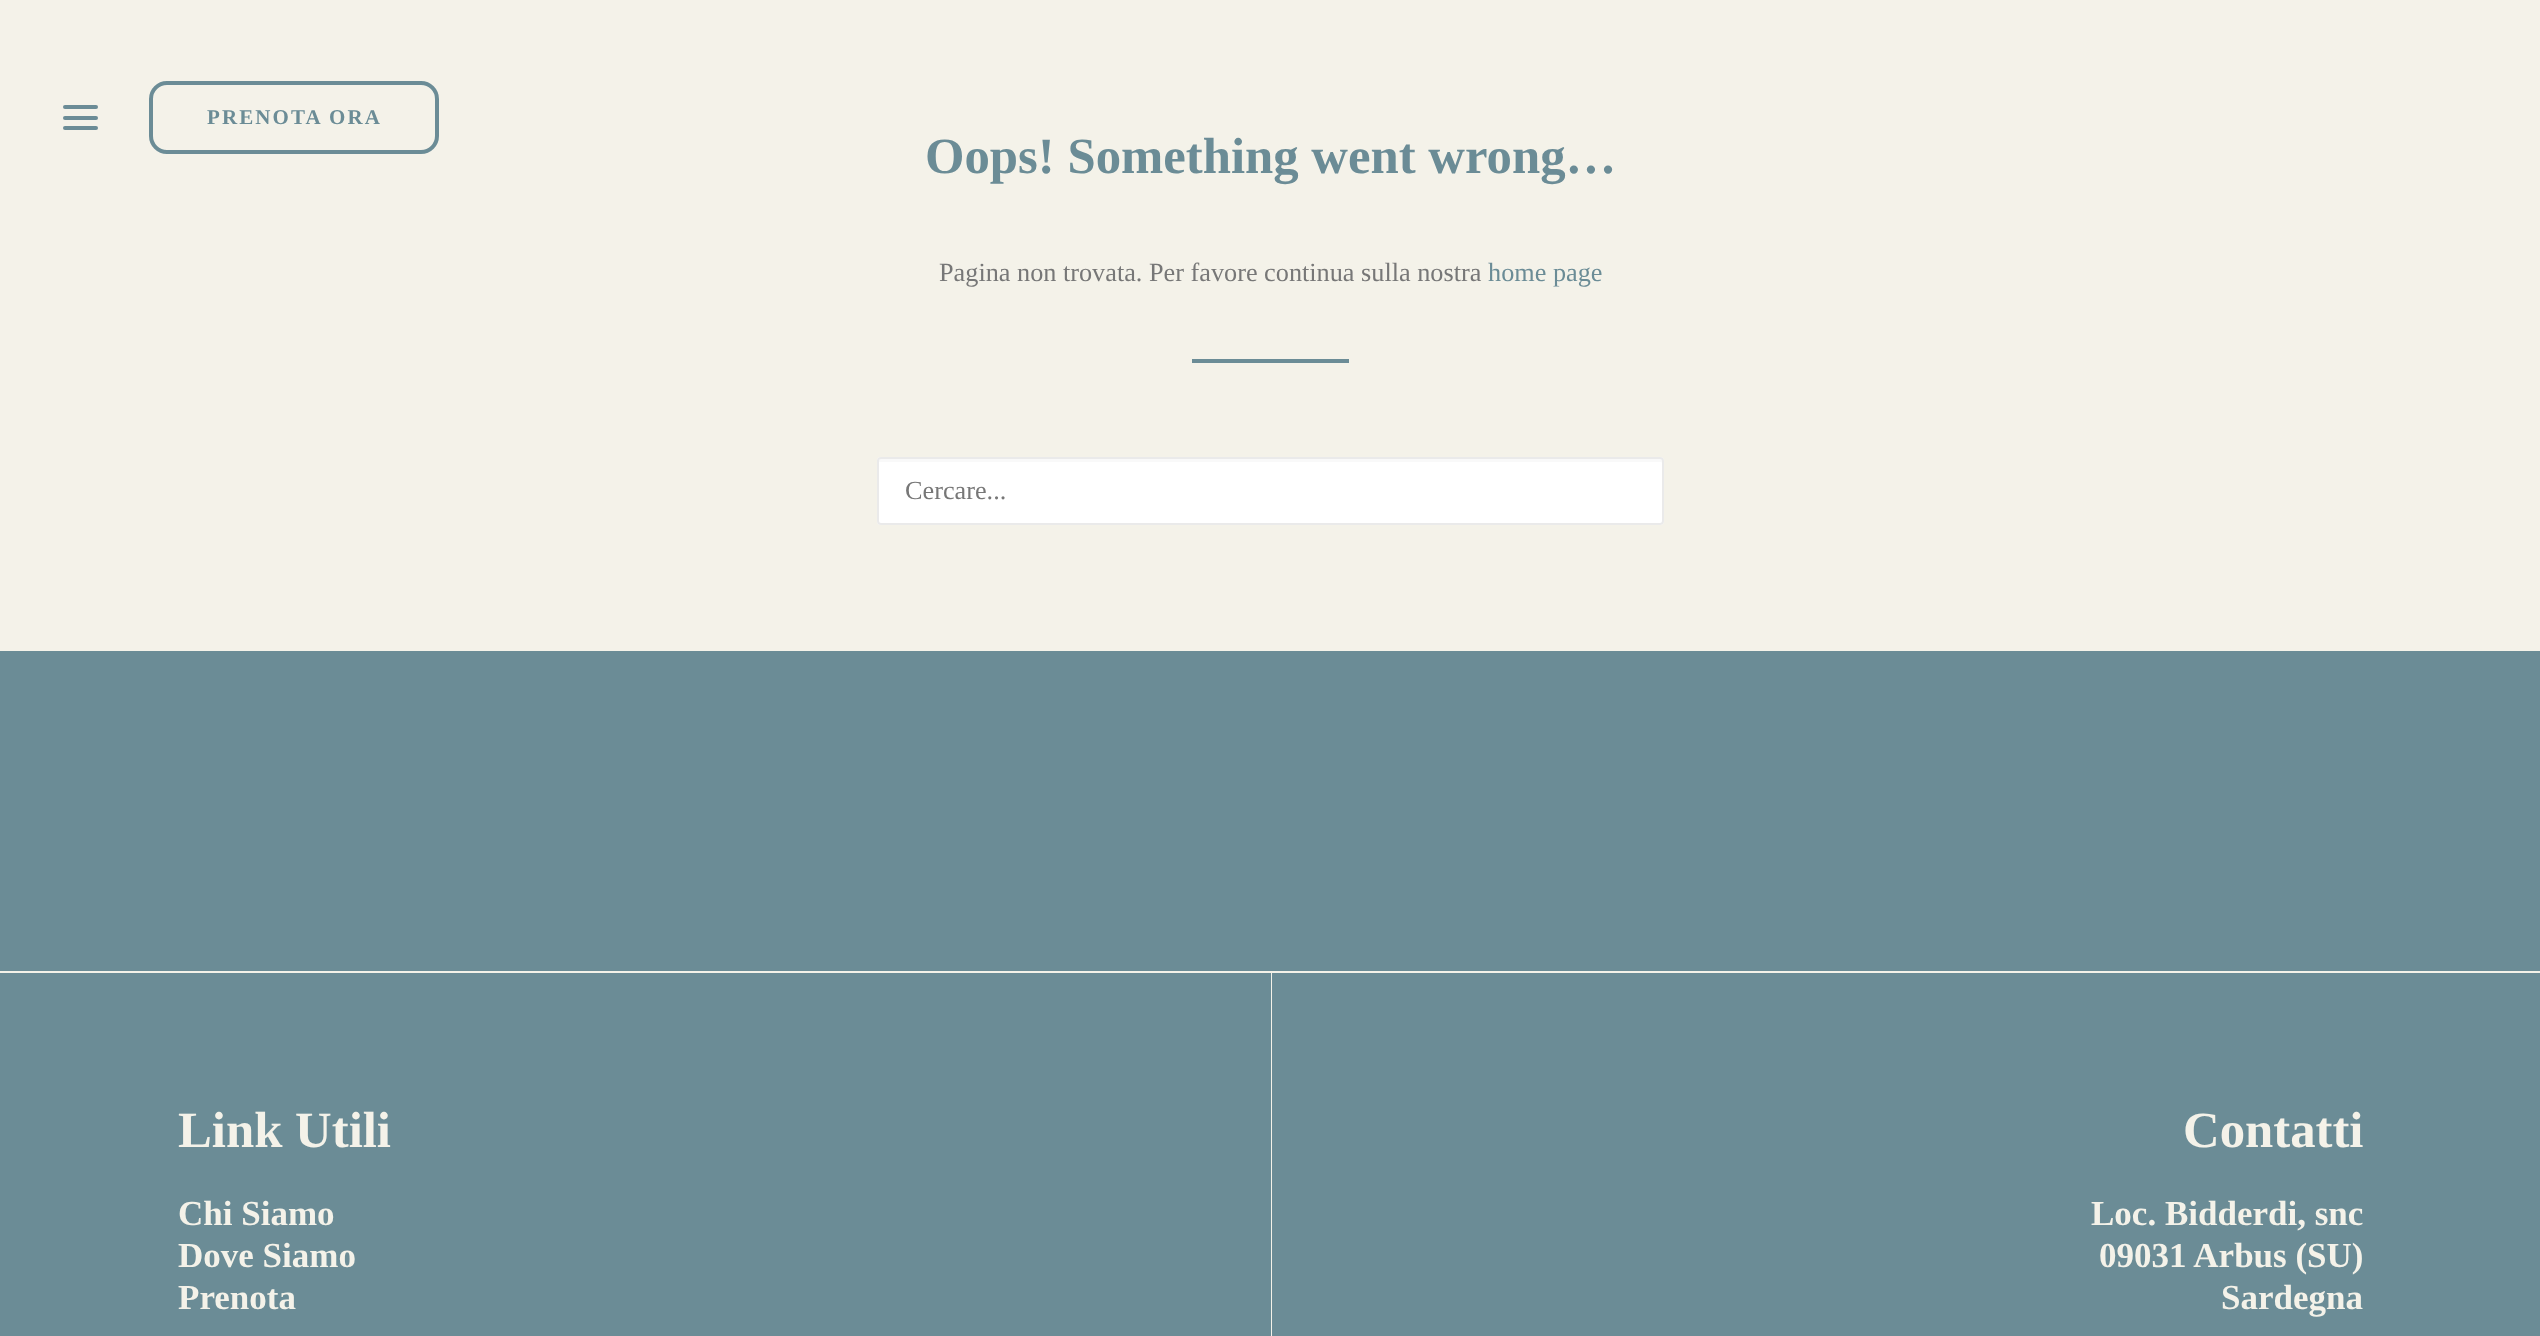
async function draw(canvas) {
  canvas.width = 2540
  canvas.height = 1336
  const ctx = canvas.getContext('2d')
  ctx.miterLimit = 4
  ctx.fontKerning = 'normal'

  ctx.fillStyle = '#f4f2e9'
  ctx.fillRect(0, 0, 2540, 1336)
  ctx.fillStyle = '#6b8c96'
  ctx.beginPath()
  ctx.roundRect(63, 116, 35, 4, 2)
  ctx.fill()
  ctx.beginPath()
  ctx.roundRect(63, 105, 35, 4, 2)
  ctx.fill()
  ctx.beginPath()
  ctx.roundRect(63, 126, 35, 4, 2)
  ctx.fill()
  ctx.beginPath()
  ctx.roundRect(151, 83, 286, 69, 16)
  ctx.strokeStyle = '#6b8c96'
  ctx.lineWidth = 4
  ctx.stroke()
  ctx.letterSpacing = '2.1px'
  ctx.font = 'bold 21px Liberation Serif'
  ctx.fillText('PRENOTA ORA', 207, 124)
  ctx.letterSpacing = '0px'
  ctx.font = 'bold 50.75px Liberation Serif'
  ctx.fillText('Oops! Something went wrong…', 925, 173)
  ctx.font = '26.25px Liberation Serif'
  ctx.fillStyle = '#777'
  ctx.fillText('Pagina non trovata. Per favore continua sulla nostra', 939, 281)
  ctx.fillStyle = '#6b8c96'
  ctx.fillText('home page', 1488, 281)
  ctx.fillRect(1192, 359, 157, 4)
  ctx.fillStyle = '#fff'
  ctx.beginPath()
  ctx.roundRect(877, 457, 787, 68, 4)
  ctx.fill()
  ctx.fillStyle = '#f9f9f9'
  ctx.beginPath()
  ctx.moveTo(880, 462)
  ctx.lineTo(1661, 462)
  ctx.bezierCurveTo(1662, 462, 1662, 463, 1662, 464)
  ctx.lineTo(1662, 523)
  ctx.lineTo(1663, 521)
  ctx.lineTo(1663, 461)
  ctx.bezierCurveTo(1663, 460, 1662, 459, 1661, 459)
  ctx.lineTo(881, 459)
  ctx.bezierCurveTo(880, 459, 879, 460, 879, 461)
  ctx.lineTo(879, 462)
  ctx.closePath()
  ctx.fill()
  ctx.beginPath()
  ctx.roundRect(878, 458, 785, 66, 3)
  ctx.strokeStyle = '#eaeaea'
  ctx.lineWidth = 2
  ctx.stroke()
  ctx.fillStyle = '#777'
  ctx.fillText('Cercare...', 905, 499)
  ctx.fillStyle = '#6b8c96'
  ctx.fillRect(0, 651, 2540, 320)
  ctx.fillRect(0, 973, 1271, 363)
  ctx.font = 'bold 50.75px Liberation Serif'
  ctx.fillStyle = '#f4f2e9'
  ctx.fillText('Link Utili', 178, 1147)
  ctx.font = 'bold 35px Liberation Serif'
  ctx.fillText('Chi Siamo', 178, 1225)
  ctx.fillText('Dove Siamo', 178, 1267)
  ctx.fillText('Prenota', 178, 1309)
  ctx.fillStyle = '#6b8c96'
  ctx.fillRect(1272, 973, 1268, 363)
  ctx.font = 'bold 50.75px Liberation Serif'
  ctx.fillStyle = '#f4f2e9'
  ctx.fillText('Contatti', 2183, 1147)
  ctx.font = 'bold 35px Liberation Serif'
  ctx.fillText('Loc. Bidderdi, snc', 2091, 1225)
  ctx.fillText('09031 Arbus (SU)', 2099, 1267)
  ctx.fillText('Sardegna', 2221, 1309)
}

draw(document.querySelector('canvas'))
